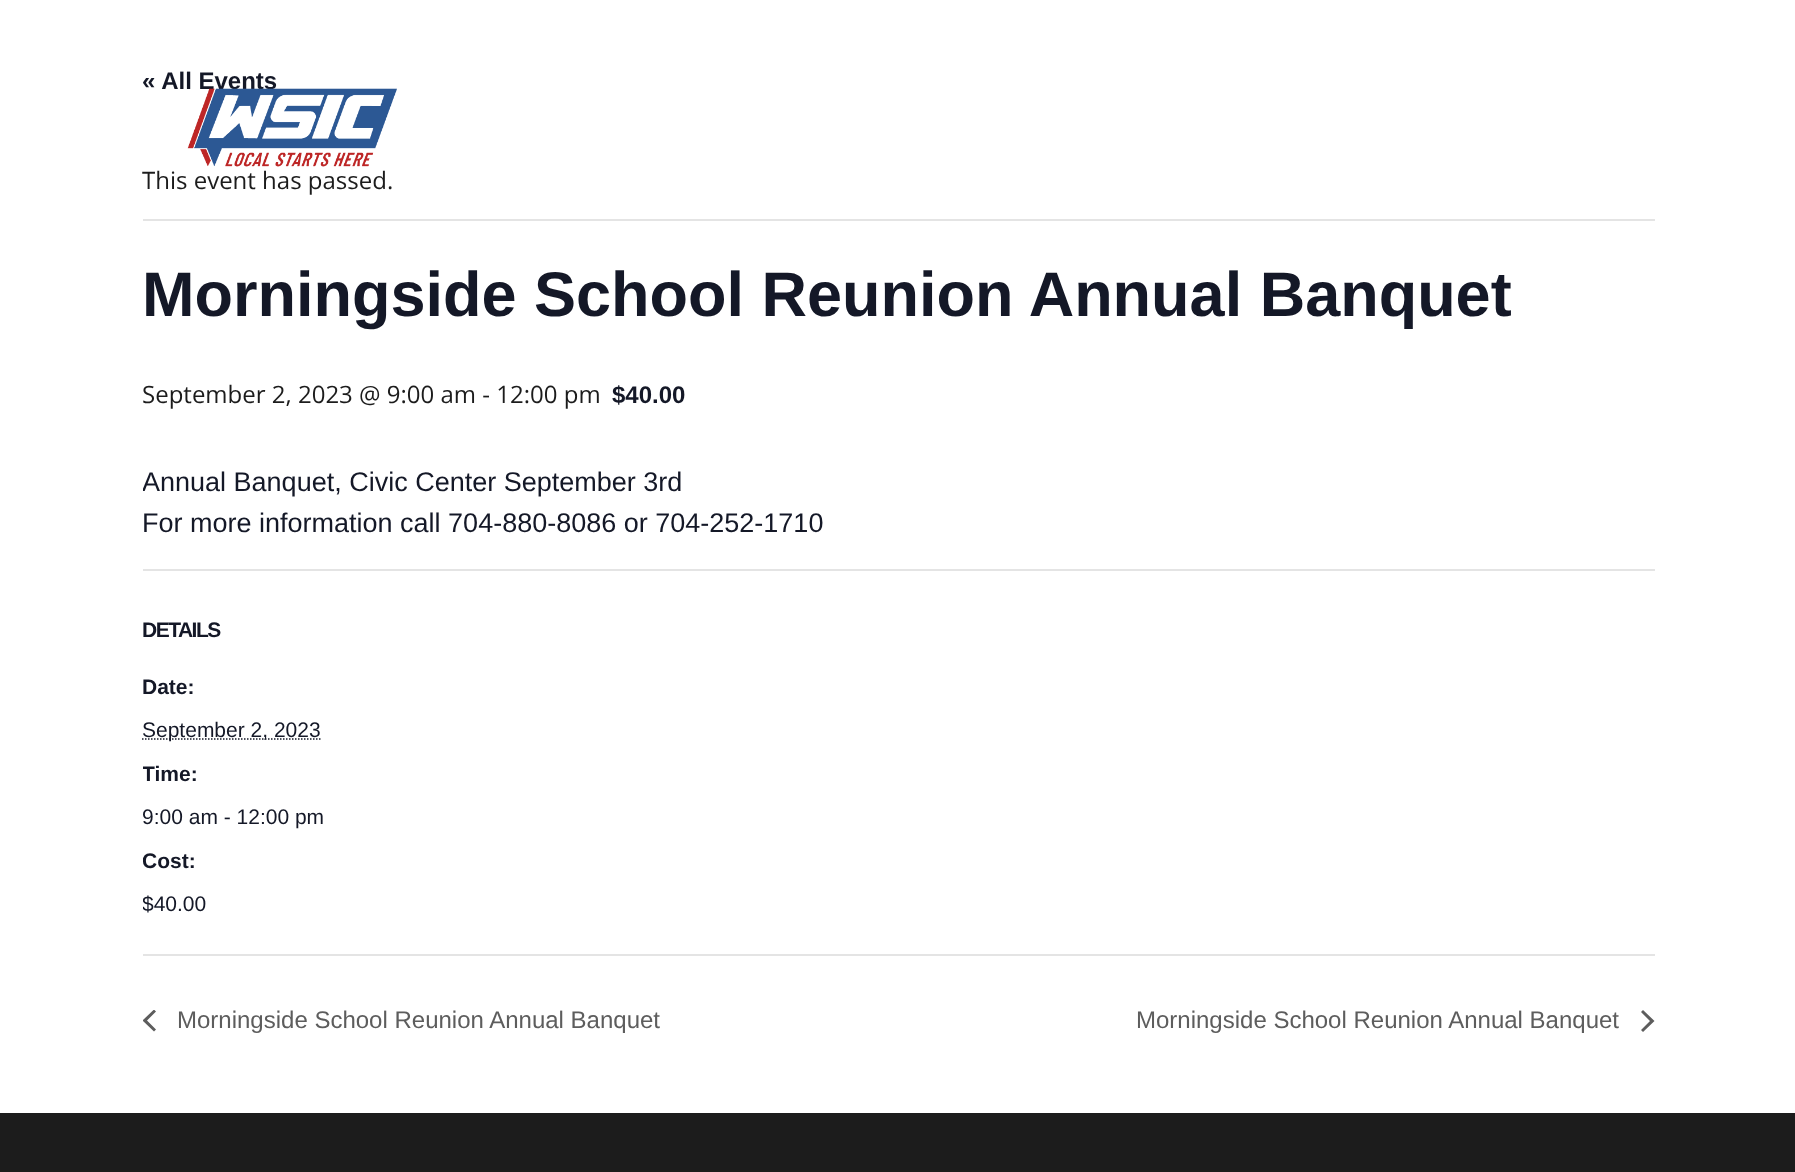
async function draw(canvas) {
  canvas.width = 1795
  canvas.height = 1172
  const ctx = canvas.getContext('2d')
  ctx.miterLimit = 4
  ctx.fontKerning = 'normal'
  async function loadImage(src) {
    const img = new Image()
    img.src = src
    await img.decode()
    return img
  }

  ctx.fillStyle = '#fff'
  ctx.fillRect(0, 0, 1795, 1172)
  ctx.font = 'bold 24px Liberation Sans'
  ctx.fillStyle = '#141827'
  ctx.fillText('« All Events', 142, 89)
  ctx.fillStyle = '#e4e4e4'
  ctx.fillRect(143, 219, 1512, 2)
  ctx.font = '24px Open Sans'
  ctx.fillStyle = '#1c1c1c'
  ctx.fillText('This event has passed.', 142, 189)
  ctx.font = 'bold 63px Liberation Sans'
  ctx.fillStyle = '#141827'
  ctx.fillText('Morningside School Reunion Annual Banquet', 142, 316)
  ctx.font = '24px Open Sans'
  ctx.fillStyle = '#1c1c1c'
  ctx.fillText('September 2, 2023 @ 9:00 am - 12:00 pm', 142, 403)
  ctx.font = 'bold 24px Liberation Sans'
  ctx.fillStyle = '#141827'
  ctx.fillText('$40.00', 612, 403)
  ctx.save()
  ctx.beginPath()
  ctx.rect(143, 464, 1512, 490)
  ctx.clip()
  ctx.font = '27px Liberation Sans'
  ctx.fillText('Annual Banquet, Civic Center September 3rd', 142, 491)
  ctx.restore()
  ctx.font = '27px Liberation Sans'
  ctx.fillText('For more information call 704-880-8086 or 704-252-1710', 142, 532)
  ctx.fillStyle = '#e4e4e4'
  ctx.fillRect(143, 569, 1512, 2)
  ctx.letterSpacing = '-1.5px'
  ctx.font = 'bold 21px Liberation Sans'
  ctx.fillStyle = '#141827'
  ctx.fillText('DETAILS', 142, 637)
  ctx.letterSpacing = '0px'
  ctx.fillText('Date:', 142, 694)
  ctx.beginPath()
  ctx.moveTo(142, 739)
  ctx.lineTo(320.5, 739)
  ctx.strokeStyle = '#141827'
  ctx.lineWidth = 1.5
  ctx.setLineDash([1.5, 1.5])
  ctx.stroke()
  ctx.font = '21px Liberation Sans'
  ctx.fillText('September 2, 2023', 142, 737)
  ctx.save()
  ctx.beginPath()
  ctx.rect(143, 464, 1512, 490)
  ctx.clip()
  ctx.font = 'bold 21px Liberation Sans'
  ctx.fillText('Time:', 142, 781)
  ctx.font = '21px Liberation Sans'
  ctx.fillText('9:00 am - 12:00 pm', 142, 824)
  ctx.font = 'bold 21px Liberation Sans'
  ctx.fillText('Cost:', 142, 868)
  ctx.font = '21px Liberation Sans'
  ctx.fillText('$40.00', 142, 911)
  ctx.restore()
  ctx.fillStyle = '#e4e4e4'
  ctx.fillRect(143, 954, 1512, 2)
  ctx.save()
  ctx.beginPath()
  ctx.rect(143, 1010, 13, 22)
  ctx.clip()
  ctx.fillStyle = '#5d5d5d'
  ctx.beginPath()
  ctx.moveTo(156, 1029.5)
  ctx.lineTo(154, 1031.5)
  ctx.lineTo(142.5, 1020.5)
  ctx.lineTo(154, 1009.5)
  ctx.lineTo(156, 1011.5)
  ctx.lineTo(147, 1020.5)
  ctx.closePath()
  ctx.fill()
  ctx.restore()
  ctx.font = '24px Liberation Sans'
  ctx.fillStyle = '#5d5d5d'
  ctx.fillText('Morningside School Reunion Annual Banquet', 177, 1028)
  ctx.fillText('Morningside School Reunion Annual Banquet', 1136, 1028)
  ctx.beginPath()
  ctx.moveTo(1641, 1012)
  ctx.lineTo(1643, 1010)
  ctx.lineTo(1654.5, 1021)
  ctx.lineTo(1643, 1032)
  ctx.lineTo(1641, 1030)
  ctx.lineTo(1650, 1021)
  ctx.closePath()
  ctx.fill()
  ctx.fillStyle = '#1c1c1c'
  ctx.fillRect(0, 1113, 1795, 59)
  ctx.drawImage(await loadImage('image0.png'), 187, 88, 210, 79)
}

draw(document.querySelector('canvas'))
